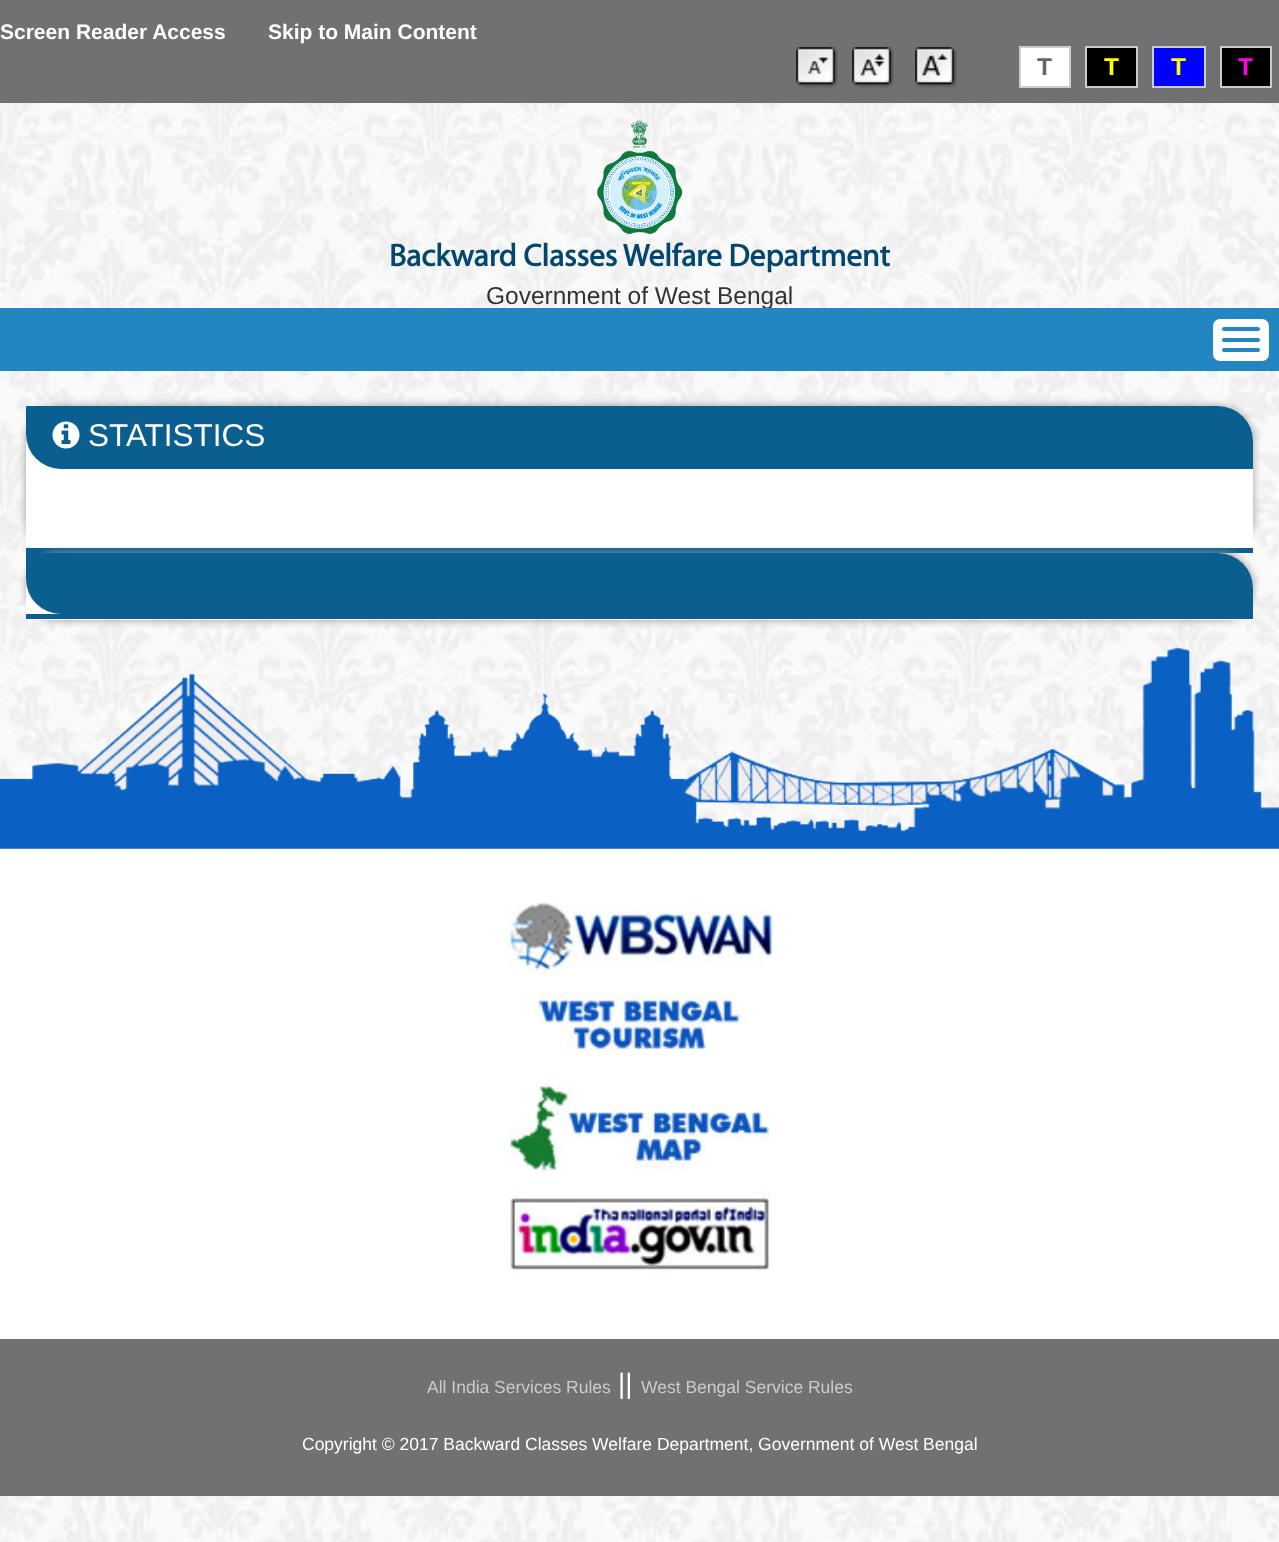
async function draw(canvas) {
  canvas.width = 1279
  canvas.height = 1542
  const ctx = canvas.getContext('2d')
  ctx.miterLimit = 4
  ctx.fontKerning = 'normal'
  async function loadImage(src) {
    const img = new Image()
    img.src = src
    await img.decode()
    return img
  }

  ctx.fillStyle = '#fff'
  ctx.fillRect(0, 0, 1279, 1542)
  ctx.drawImage(await loadImage('image0.png'), 0, 103, 1279, 1439)
  ctx.fillStyle = '#717171'
  ctx.fillRect(0, 0, 1279, 103)
  ctx.font = 'bold 21px Liberation Sans'
  ctx.fillStyle = '#fff'
  ctx.fillText('Screen Reader Access', 0, 39)
  ctx.fillText('Skip to Main Content', 268, 39)
  ctx.drawImage(await loadImage('image1.png'), 796, 47, 42, 41)
  ctx.drawImage(await loadImage('image2.png'), 852, 47, 42, 41)
  ctx.drawImage(await loadImage('image3.png'), 915, 47, 42, 41)
  ctx.beginPath()
  ctx.rect(1020, 47, 50, 40)
  ctx.fill()
  ctx.strokeStyle = '#ccc'
  ctx.lineWidth = 2
  ctx.stroke()
  ctx.font = 'bold 24.5px Liberation Sans'
  ctx.fillStyle = '#666'
  ctx.fillText('T', 1037, 75)
  ctx.fillStyle = '#000'
  ctx.beginPath()
  ctx.rect(1086, 47, 51, 40)
  ctx.fill()
  ctx.stroke()
  ctx.fillStyle = '#ff0'
  ctx.fillText('T', 1104, 75)
  ctx.fillStyle = '#00f'
  ctx.beginPath()
  ctx.rect(1153, 47, 52, 40)
  ctx.fill()
  ctx.stroke()
  ctx.fillStyle = '#ff0'
  ctx.fillText('T', 1171, 75)
  ctx.fillStyle = '#000'
  ctx.beginPath()
  ctx.rect(1221, 47, 50, 40)
  ctx.fill()
  ctx.stroke()
  ctx.fillStyle = '#ff00e7'
  ctx.fillText('T', 1238, 75)
  ctx.drawImage(await loadImage('image4.png'), 596, 120, 87, 114)
  ctx.font = 'bold 31.5px Myriad'
  ctx.fillStyle = '#03476f'
  ctx.fillText('Backward Classes Welfare Department', 389, 266)
  ctx.font = '24.5px Liberation Sans'
  ctx.fillStyle = '#333'
  ctx.fillText('Government of West Bengal', 486, 304)
  ctx.fillStyle = '#2286c2'
  ctx.fillRect(0, 308, 1279, 63)
  ctx.fillStyle = '#fff'
  ctx.beginPath()
  ctx.roundRect(1213, 319, 56, 42, 7)
  ctx.fill()
  ctx.fillStyle = '#2286c2'
  ctx.beginPath()
  ctx.roundRect(1222, 327, 38, 4, 2)
  ctx.fill()
  ctx.beginPath()
  ctx.roundRect(1222, 338, 38, 4, 2)
  ctx.fill()
  ctx.beginPath()
  ctx.roundRect(1222, 348, 38, 4, 2)
  ctx.fill()
  ctx.fillStyle = '#999'
  ctx.filter = 'blur(4.5px)'
  ctx.beginPath()
  ctx.roundRect(26, 406, 1227, 147, 35)
  ctx.fill()
  ctx.filter = 'none'
  ctx.fillStyle = '#fff'
  ctx.beginPath()
  ctx.roundRect(26, 406, 1227, 147, [0, 35, 0, 0])
  ctx.fill()
  ctx.fillStyle = '#0a5e90'
  ctx.fillRect(26, 548, 1227, 5)
  ctx.beginPath()
  ctx.roundRect(26, 406, 1227, 63, [0, 35, 0, 35])
  ctx.fill()
  ctx.drawImage(await loadImage('image5.png'), 52, 421, 28, 28)
  ctx.font = '31.5px Liberation Sans'
  ctx.fillStyle = '#fff'
  ctx.fillText('STATISTICS', 88, 446)
  ctx.fillStyle = '#999'
  ctx.filter = 'blur(4.5px)'
  ctx.beginPath()
  ctx.roundRect(26, 553, 1227, 67, 35)
  ctx.fill()
  ctx.filter = 'none'
  ctx.fillStyle = '#fff'
  ctx.beginPath()
  ctx.roundRect(26, 553, 1227, 67, [0, 35, 0, 0])
  ctx.fill()
  ctx.fillStyle = '#0a5e90'
  ctx.fillRect(26, 614, 1227, 5)
  ctx.beginPath()
  ctx.roundRect(26, 553, 1227, 61, [0, 35, 0, 35])
  ctx.fill()
  ctx.drawImage(await loadImage('image6.png'), 0, 647, 1279, 202)
  ctx.fillStyle = '#fff'
  ctx.fillRect(0, 849, 1279, 490)
  ctx.drawImage(await loadImage('image7.png'), 505, 902, 268, 75)
  ctx.drawImage(await loadImage('image8.png'), 537, 993, 210, 58)
  ctx.drawImage(await loadImage('image9.png'), 509, 1085, 261, 87)
  ctx.drawImage(await loadImage('image10.png'), 506, 1190, 266, 84)
  ctx.fillStyle = '#717171'
  ctx.fillRect(0, 1339, 1279, 157)
  ctx.font = '17.5px Liberation Sans'
  ctx.fillStyle = '#ccc'
  ctx.fillText('All India Services Rules', 427, 1393)
  ctx.font = '28px Liberation Sans'
  ctx.fillStyle = '#fff'
  ctx.fillText('||', 618, 1393)
  ctx.font = '17.5px Liberation Sans'
  ctx.fillStyle = '#ccc'
  ctx.fillText('West Bengal Service Rules', 641, 1393)
  ctx.fillStyle = '#fff'
  ctx.fillText('Copyright © 2017 Backward Classes Welfare Department, Government of West Bengal', 302, 1450)
}

draw(document.querySelector('canvas'))
